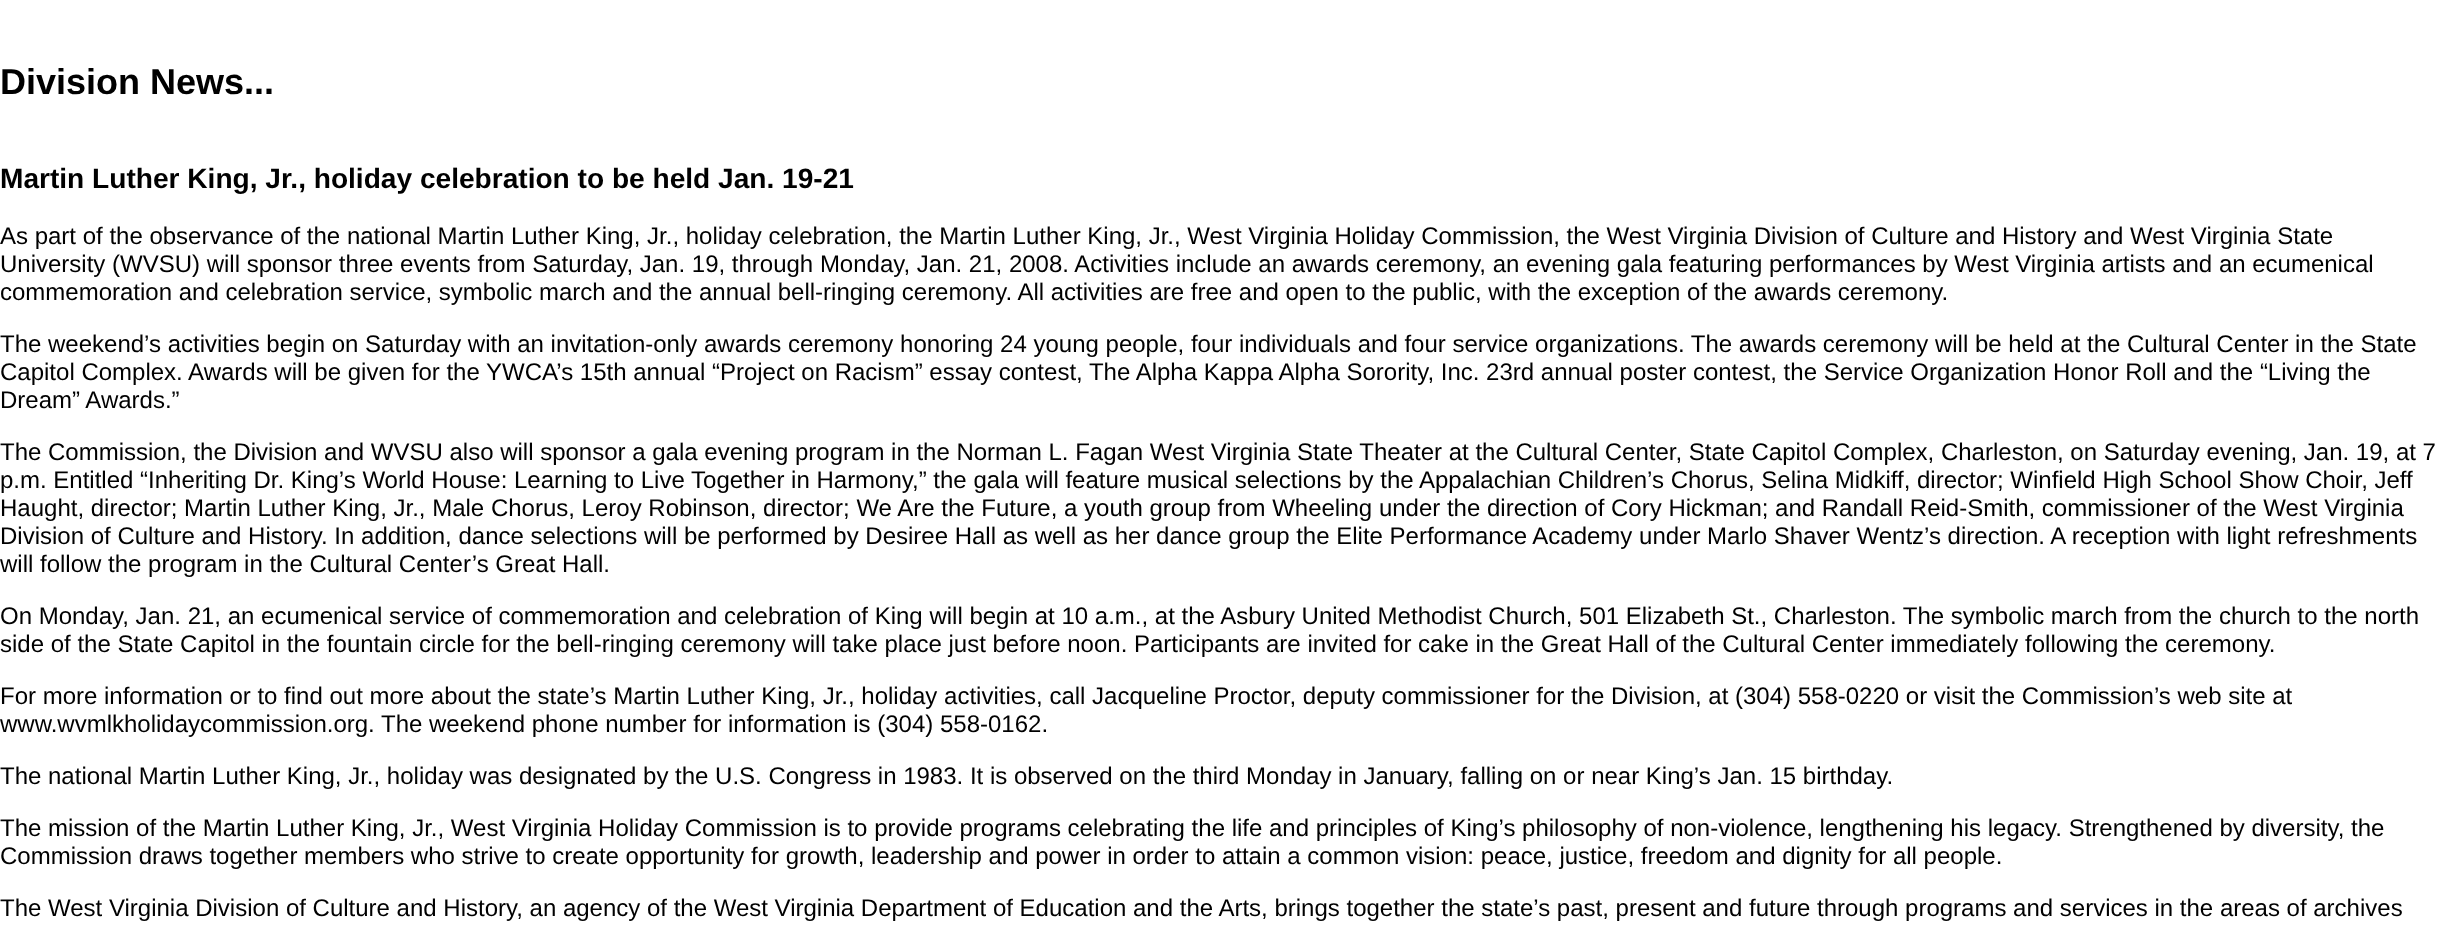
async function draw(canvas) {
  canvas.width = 2455
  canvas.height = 932
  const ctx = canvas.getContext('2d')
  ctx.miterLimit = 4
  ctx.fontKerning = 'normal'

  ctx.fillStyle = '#fff'
  ctx.fillRect(0, 0, 2455, 932)
  ctx.font = 'bold 36px Liberation Sans'
  ctx.fillStyle = '#000'
  ctx.fillText('Division News...', 0, 94)
  ctx.font = 'bold 28.1px Liberation Sans'
  ctx.fillText('Martin Luther King, Jr., holiday celebration to be held Jan. 19-21', 0, 188)
  ctx.font = '24px Liberation Sans'
  ctx.fillText('As part of the observance of the national Martin Luther King, Jr., holiday celebration, the Martin Luther King, Jr., West Virginia Holiday Commission, the West Virginia Division of Culture and History and West Virginia State', 0, 244)
  ctx.fillText('University (WVSU) will sponsor three events from Saturday, Jan. 19, through Monday, Jan. 21, 2008. Activities include an awards ceremony, an evening gala featuring performances by West Virginia artists and an ecumenical', 0, 272)
  ctx.fillText('commemoration and celebration service, symbolic march and the annual bell-ringing ceremony. All activities are free and open to the public, with the exception of the awards ceremony.', 0, 300)
  ctx.fillText('The weekend’s activities begin on Saturday with an invitation-only awards ceremony honoring 24 young people, four individuals and four service organizations. The awards ceremony will be held at the Cultural Center in the State', 0, 352)
  ctx.fillText('Capitol Complex. Awards will be given for the YWCA’s 15th annual “Project on Racism” essay contest, The Alpha Kappa Alpha Sorority, Inc. 23rd annual poster contest, the Service Organization Honor Roll and the “Living the', 0, 380)
  ctx.fillText('Dream” Awards.”', 0, 408)
  ctx.fillText('The Commission, the Division and WVSU also will sponsor a gala evening program in the Norman L. Fagan West Virginia State Theater at the Cultural Center, State Capitol Complex, Charleston, on Saturday evening, Jan. 19, at 7', 0, 460)
  ctx.fillText('p.m. Entitled “Inheriting Dr. King’s World House: Learning to Live Together in Harmony,” the gala will feature musical selections by the Appalachian Children’s Chorus, Selina Midkiff, director; Winfield High School Show Choir, Jeff', 0, 488)
  ctx.fillText('Haught, director; Martin Luther King, Jr., Male Chorus, Leroy Robinson, director; We Are the Future, a youth group from Wheeling under the direction of Cory Hickman; and Randall Reid-Smith, commissioner of the West Virginia', 0, 516)
  ctx.fillText('Division of Culture and History. In addition, dance selections will be performed by Desiree Hall as well as her dance group the Elite Performance Academy under Marlo Shaver Wentz’s direction. A reception with light refreshments', 0, 544)
  ctx.fillText('will follow the program in the Cultural Center’s Great Hall.', 0, 572)
  ctx.fillText('On Monday, Jan. 21, an ecumenical service of commemoration and celebration of King will begin at 10 a.m., at the Asbury United Methodist Church, 501 Elizabeth St., Charleston. The symbolic march from the church to the north', 0, 624)
  ctx.fillText('side of the State Capitol in the fountain circle for the bell-ringing ceremony will take place just before noon. Participants are invited for cake in the Great Hall of the Cultural Center immediately following the ceremony.', 0, 652)
  ctx.fillText('For more information or to find out more about the state’s Martin Luther King, Jr., holiday activities, call Jacqueline Proctor, deputy commissioner for the Division, at (304) 558-0220 or visit the Commission’s web site at', 0, 704)
  ctx.fillText('www.wvmlkholidaycommission.org. The weekend phone number for information is (304) 558-0162.', 0, 732)
  ctx.fillText('The national Martin Luther King, Jr., holiday was designated by the U.S. Congress in 1983. It is observed on the third Monday in January, falling on or near King’s Jan. 15 birthday.', 0, 784)
  ctx.fillText('The mission of the Martin Luther King, Jr., West Virginia Holiday Commission is to provide programs celebrating the life and principles of King’s philosophy of non-violence, lengthening his legacy. Strengthened by diversity, the', 0, 836)
  ctx.fillText('Commission draws together members who strive to create opportunity for growth, leadership and power in order to attain a common vision: peace, justice, freedom and dignity for all people.', 0, 864)
  ctx.fillText('The West Virginia Division of Culture and History, an agency of the West Virginia Department of Education and the Arts, brings together the state’s past, present and future through programs and services in the areas of archives', 0, 916)
}

draw(document.querySelector('canvas'))
